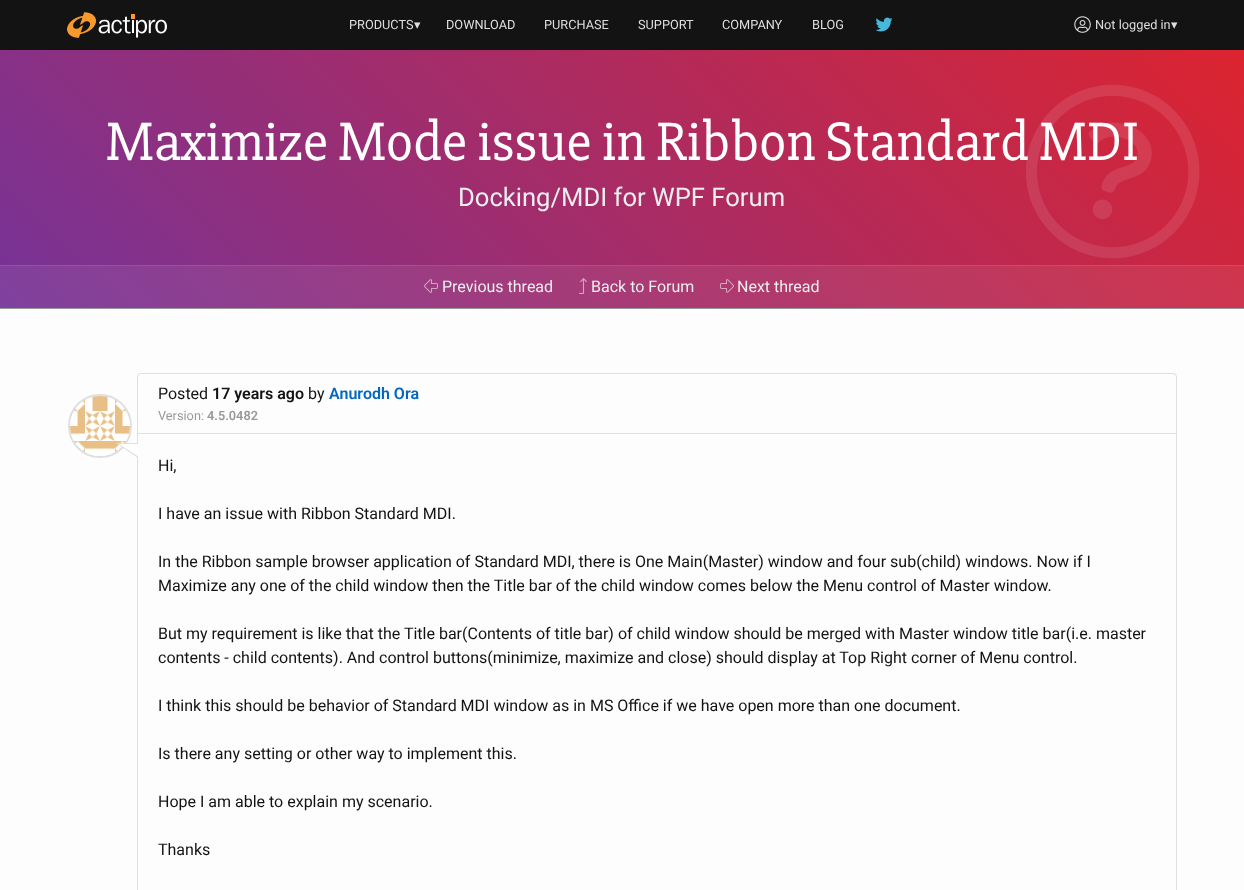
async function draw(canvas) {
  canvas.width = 1244
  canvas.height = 890
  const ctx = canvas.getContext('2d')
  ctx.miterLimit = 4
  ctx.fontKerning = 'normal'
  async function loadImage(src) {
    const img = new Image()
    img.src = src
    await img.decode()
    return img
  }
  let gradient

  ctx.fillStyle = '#131314'
  ctx.fillRect(0, 0, 1244, 890)
  ctx.drawImage(await loadImage('image0.png'), 67, 12, 100, 26)
  ctx.font = '12.75px Roboto'
  ctx.fillStyle = '#dfdfe0'
  ctx.fillText('PRODUCTS', 349, 29)
  ctx.font = '12.75px DejaVu Sans'
  ctx.fillText('▾', 414, 29)
  ctx.font = '12.75px Roboto'
  ctx.fillText('DOWNLOAD', 446, 29)
  ctx.fillText('PURCHASE', 544, 29)
  ctx.fillText('SUPPORT', 638, 29)
  ctx.fillText('COMPANY', 722, 29)
  ctx.fillText('BLOG', 812, 29)
  ctx.drawImage(await loadImage('image1.png'), 875, 17, 18, 15)
  ctx.drawImage(await loadImage('image2.png'), 1074, 16, 17, 17)
  ctx.fillText('Not logged in', 1095, 29)
  ctx.font = '12.75px DejaVu Sans'
  ctx.fillText('▾', 1171, 29)
  gradient = ctx.createLinearGradient(247, 555, 998, -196)
  gradient.addColorStop(0, '#763398')
  gradient.addColorStop(1, '#dc2430')
  ctx.fillStyle = gradient
  ctx.fillRect(0, 50, 1244, 258)
  ctx.fillStyle = '#96999c'
  ctx.fillRect(0, 308, 1244, 1)
  ctx.font = '56px "Slabo 27px"'
  ctx.fillStyle = '#fff'
  ctx.fillText('Maximize Mode issue in Ribbon Standard MDI', 106, 160)
  ctx.drawImage(await loadImage('image3.png'), 1026, 84, 174, 175)
  ctx.font = '25.6px Roboto'
  ctx.fillStyle = '#eceeef'
  ctx.fillText('Docking/MDI for WPF Forum', 458, 206)
  ctx.fillStyle = '#ffffff12'
  ctx.fillRect(0, 265, 1244, 43)
  ctx.fillStyle = '#ffffff1a'
  ctx.fillRect(0, 265, 1244, 1)
  ctx.drawImage(await loadImage('image4.png'), 424, 279, 14, 14)
  ctx.font = '16px Roboto'
  ctx.fillStyle = '#eceeef'
  ctx.fillText('Previous thread', 442, 292)
  ctx.drawImage(await loadImage('image5.png'), 579, 278, 8, 16)
  ctx.fillText('Back to Forum', 591, 292)
  ctx.drawImage(await loadImage('image6.png'), 720, 279, 14, 14)
  ctx.fillText('Next thread', 737, 292)
  ctx.fillStyle = '#fdfdfd'
  ctx.fillRect(0, 309, 1244, 581)
  ctx.beginPath()
  ctx.roundRect(137.5, 373.5, 1039, 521, 3.5)
  ctx.strokeStyle = '#dfdfe0'
  ctx.stroke()
  ctx.fillStyle = '#dfdfe0'
  ctx.fillRect(138, 433, 1038, 1)
  ctx.fillStyle = '#131314'
  ctx.fillText('Posted', 158, 399)
  ctx.font = '600 16px Roboto'
  ctx.fillText('17 years ago', 212, 399)
  ctx.font = '16px Roboto'
  ctx.fillText('by', 308, 399)
  ctx.font = '600 16px Roboto'
  ctx.fillStyle = '#0267bf'
  ctx.fillText('Anurodh Ora', 329, 399)
  ctx.font = '12.75px Roboto'
  ctx.fillStyle = '#96999c'
  ctx.fillText('Version:', 158, 420)
  ctx.font = '600 12.75px Roboto'
  ctx.fillText('4.5.0482', 207, 420)
  ctx.beginPath()
  ctx.arc(100, 426, 31, 0, 2 * Math.PI)
  ctx.lineWidth = 2
  ctx.stroke()
  ctx.drawImage(await loadImage('image7.png'), 70, 396, 60, 60)
  ctx.fillStyle = '#dfdfe0'
  ctx.beginPath()
  ctx.moveTo(138, 443)
  ctx.lineTo(138, 458)
  ctx.lineTo(116, 443)
  ctx.closePath()
  ctx.fill()
  ctx.fillStyle = '#fff'
  ctx.beginPath()
  ctx.moveTo(139, 444)
  ctx.lineTo(139, 457)
  ctx.lineTo(119, 444)
  ctx.closePath()
  ctx.fill()
  ctx.font = '16px Roboto'
  ctx.fillStyle = '#131314'
  ctx.fillText('Hi,', 158, 471)
  ctx.fillText('I have an issue with Ribbon Standard MDI.', 158, 519)
  ctx.fillText('In the Ribbon sample browser application of Standard MDI, there is One Main(Master) window and four sub(child) windows. Now if I', 158, 567)
  ctx.fillText('Maximize any one of the child window then the Title bar of the child window comes below the Menu control of Master window.', 158, 591)
  ctx.fillText('But my requirement is like that the Title bar(Contents of title bar) of child window should be merged with Master window title bar(i.e. master', 158, 639)
  ctx.fillText('contents - child contents). And control buttons(minimize, maximize and close) should display at Top Right corner of Menu control.', 158, 663)
  ctx.fillText('I think this should be behavior of Standard MDI window as in MS Office if we have open more than one document.', 158, 711)
  ctx.fillText('Is there any setting or other way to implement this.', 158, 759)
  ctx.fillText('Hope I am able to explain my scenario.', 158, 807)
  ctx.fillText('Thanks', 158, 855)
}

draw(document.querySelector('canvas'))
